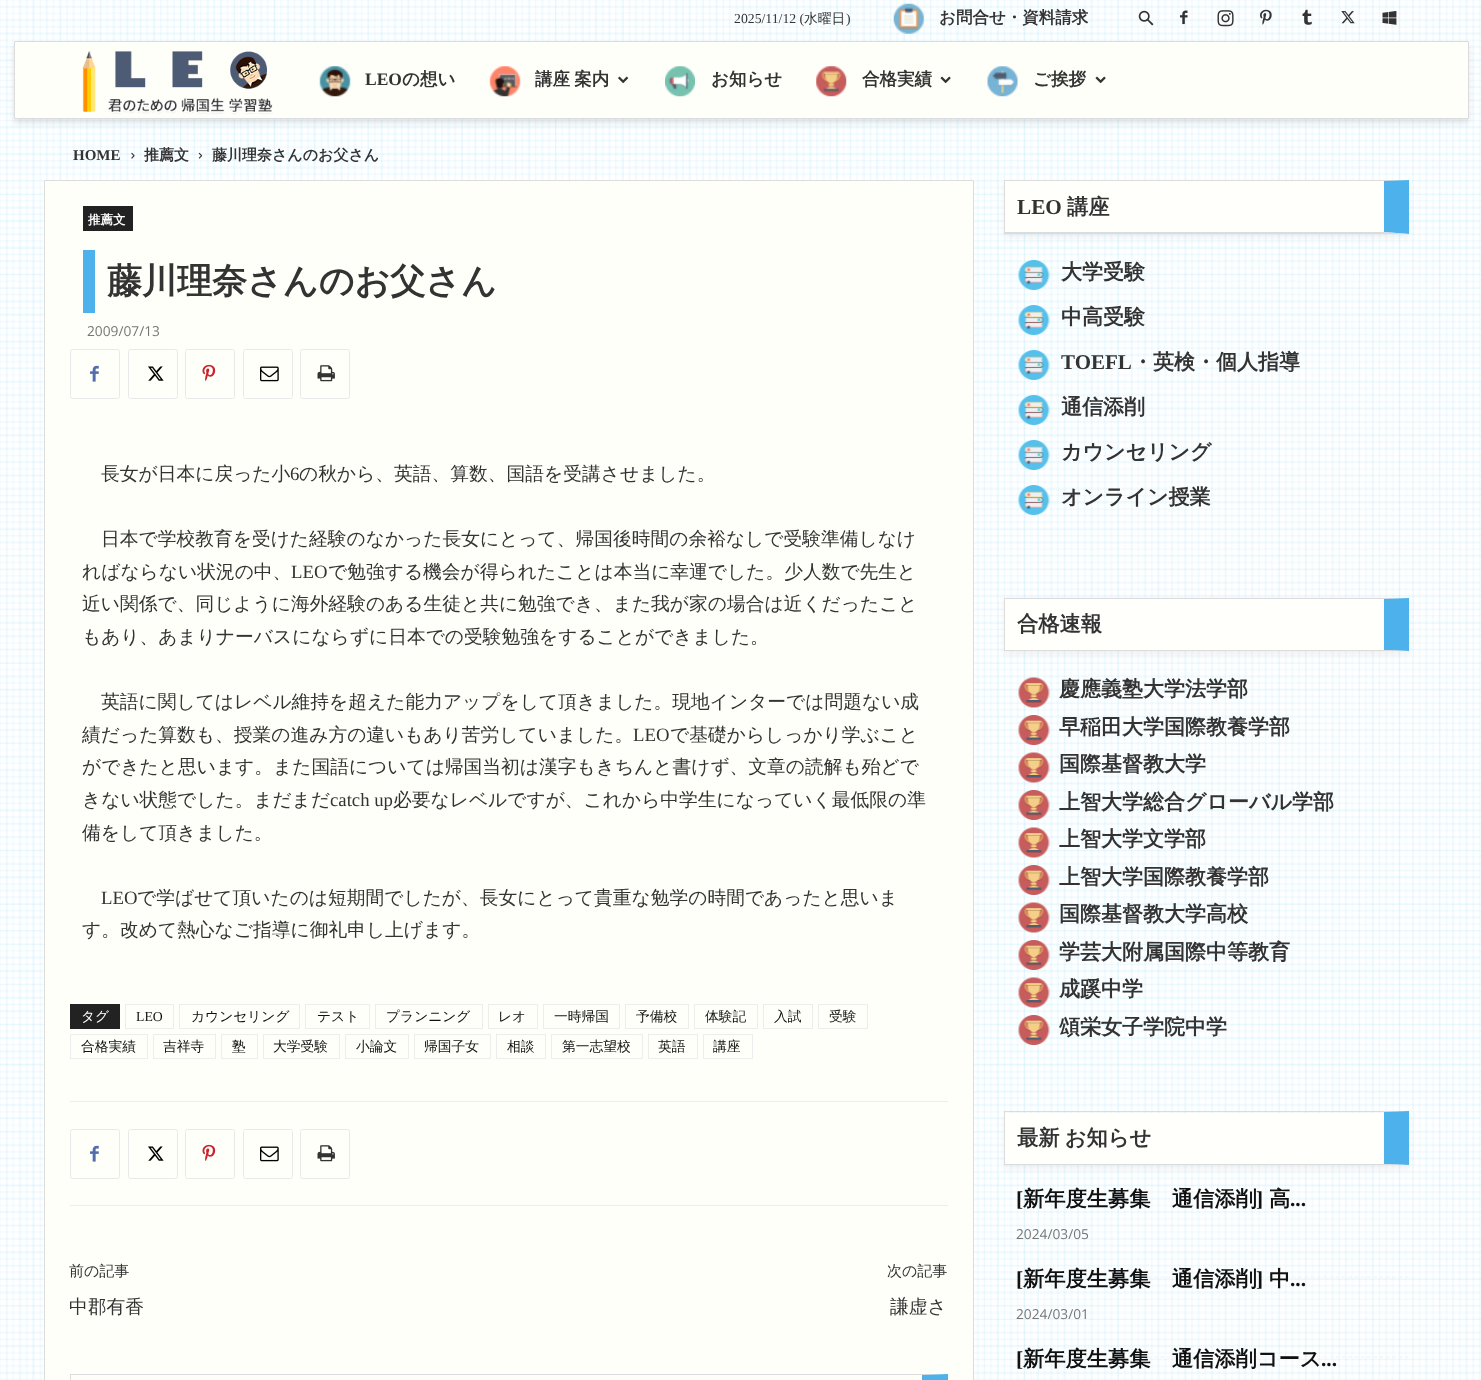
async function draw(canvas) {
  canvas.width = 1481
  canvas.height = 1380
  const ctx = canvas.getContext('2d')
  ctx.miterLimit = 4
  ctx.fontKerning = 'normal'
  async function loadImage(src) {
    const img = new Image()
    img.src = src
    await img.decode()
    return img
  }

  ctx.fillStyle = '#fff'
  ctx.fillRect(0, 0, 1481, 1380)
  ctx.drawImage(await loadImage('image0.png'), 0, 0, 1481, 1380)
  ctx.font = '13.75px Liberation Serif'
  ctx.fillStyle = '#333'
  ctx.fillText('2025/11/12 (', 734, 23)
  ctx.font = '500 13.75px WenQuanYi Zen Hei'
  ctx.fillText('水曜日', 804, 23)
  ctx.font = '13.75px Liberation Serif'
  ctx.fillText(')', 846, 23)
  ctx.drawImage(await loadImage('image1.png'), 893, 3, 31, 31)
  ctx.font = 'bold 16.5px WenQuanYi Zen Hei'
  ctx.fillText('お問合せ・資料請求', 939, 23)
  ctx.drawImage(await loadImage('image2.png'), 1138, 10, 16, 16)
  ctx.drawImage(await loadImage('image3.png'), 1180, 10, 8, 15)
  ctx.drawImage(await loadImage('image4.png'), 1217, 10, 17, 17)
  ctx.drawImage(await loadImage('image5.png'), 1260, 9, 12, 16)
  ctx.drawImage(await loadImage('image6.png'), 1302, 9, 10, 16)
  ctx.drawImage(await loadImage('image7.png'), 1341, 11, 14, 13)
  ctx.drawImage(await loadImage('image8.png'), 1382, 10, 15, 15)
  ctx.fillStyle = '#0000001a'
  ctx.filter = 'blur(3px)'
  ctx.beginPath()
  ctx.rect(14, 45, 1455, 78)
  ctx.fill()
  ctx.filter = 'none'
  ctx.fillStyle = '#fffffa'
  ctx.beginPath()
  ctx.rect(14.5, 41.5, 1454, 77)
  ctx.fill()
  ctx.strokeStyle = '#dcdcdc'
  ctx.stroke()
  ctx.drawImage(await loadImage('image9.png'), 82, 51, 191, 64)
  ctx.drawImage(await loadImage('image10.png'), 319, 66, 32, 31)
  ctx.font = 'bold 17.5px Liberation Serif'
  ctx.fillStyle = '#333'
  ctx.fillText('LEO', 365, 85)
  ctx.font = 'bold 17.5px WenQuanYi Zen Hei'
  ctx.fillText('の想い', 402, 85)
  ctx.drawImage(await loadImage('image11.png'), 489, 66, 32, 31)
  ctx.wordSpacing = '-1px'
  ctx.fillText('講座 案内', 535, 85)
  ctx.drawImage(await loadImage('image12.png'), 618, 76, 11, 8)
  ctx.drawImage(await loadImage('image13.png'), 665, 66, 30, 31)
  ctx.wordSpacing = '0px'
  ctx.fillText('お知らせ', 711, 85)
  ctx.drawImage(await loadImage('image14.png'), 816, 66, 31, 31)
  ctx.fillText('合格実績', 862, 85)
  ctx.drawImage(await loadImage('image15.png'), 940, 76, 11, 8)
  ctx.drawImage(await loadImage('image16.png'), 987, 66, 31, 31)
  ctx.fillText('ご挨拶', 1033, 85)
  ctx.drawImage(await loadImage('image15.png'), 1095, 76, 11, 8)
  ctx.font = 'bold 15px Liberation Serif'
  ctx.fillText('HOME', 73, 160)
  ctx.drawImage(await loadImage('image17.png'), 131, 152, 4, 7)
  ctx.font = 'bold 15px WenQuanYi Zen Hei'
  ctx.fillText('推薦文', 144, 160)
  ctx.drawImage(await loadImage('image18.png'), 198, 152, 5, 7)
  ctx.fillText('藤川理奈さんのお父さん', 212, 160)
  ctx.fillStyle = '#fffffa'
  ctx.beginPath()
  ctx.rect(44.5, 180.5, 929, 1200)
  ctx.fill()
  ctx.stroke()
  ctx.fillStyle = '#222'
  ctx.fillRect(83, 206, 50, 25)
  ctx.font = 'bold 12.5px WenQuanYi Zen Hei'
  ctx.fillStyle = '#fff'
  ctx.fillText('推薦文', 88, 224)
  ctx.fillStyle = '#4db2ec'
  ctx.fillRect(83, 250, 12, 63)
  ctx.font = 'bold 35px WenQuanYi Zen Hei'
  ctx.fillStyle = '#333'
  ctx.fillText('藤川理奈さんのお父さん', 107, 293)
  ctx.font = '13.75px Open Sans'
  ctx.fillStyle = '#767676'
  ctx.fillText('2009/07/13', 87, 336)
  ctx.beginPath()
  ctx.roundRect(70.5, 349.5, 49, 49, 2)
  ctx.strokeStyle = '#e9e9e9'
  ctx.stroke()
  ctx.drawImage(await loadImage('image19.png'), 90, 365, 9, 17)
  ctx.beginPath()
  ctx.roundRect(128.5, 349.5, 49, 49, 2)
  ctx.stroke()
  ctx.drawImage(await loadImage('image20.png'), 148, 366, 16, 15)
  ctx.beginPath()
  ctx.roundRect(185.5, 349.5, 49, 49, 2)
  ctx.stroke()
  ctx.drawImage(await loadImage('image21.png'), 202, 364, 14, 17)
  ctx.beginPath()
  ctx.roundRect(243.5, 349.5, 49, 49, 2)
  ctx.stroke()
  ctx.drawImage(await loadImage('image22.png'), 260, 366, 19, 16)
  ctx.beginPath()
  ctx.roundRect(300.5, 349.5, 49, 49, 2)
  ctx.stroke()
  ctx.drawImage(await loadImage('image23.png'), 317, 365, 18, 17)
  ctx.font = '500 18.75px WenQuanYi Zen Hei'
  ctx.fillStyle = '#333'
  ctx.fillText('長女が日本に戻った小', 101, 480)
  ctx.font = '18.75px Liberation Serif'
  ctx.fillText('6', 290, 480)
  ctx.font = '500 18.75px WenQuanYi Zen Hei'
  ctx.fillText('の秋から、英語、算数、国語を受講させました。', 299, 480)
  ctx.fillText('日本で学校教育を受けた経験のなかった長女にとって、帰国後時間の余裕なしで受験準備しなけ', 101, 545)
  ctx.fillText('ればならない状況の中、', 82, 578)
  ctx.font = '18.75px Liberation Serif'
  ctx.fillText('LEO', 291, 578)
  ctx.font = '500 18.75px WenQuanYi Zen Hei'
  ctx.fillText('で勉強する機会が得られたことは本当に幸運でした。少人数で先生と', 328, 578)
  ctx.fillText('近い関係で、同じように海外経験のある生徒と共に勉強でき、また我が家の場合は近くだったこと', 82, 610)
  ctx.fillText('もあり、あまりナーバスにならずに日本での受験勉強をすることができました。', 82, 643)
  ctx.fillText('英語に関してはレベル維持を超えた能力アップをして頂きました。現地インターでは問題ない成', 101, 708)
  ctx.fillText('績だった算数も、授業の進み方の違いもあり苦労していました。', 82, 741)
  ctx.font = '18.75px Liberation Serif'
  ctx.fillText('LEO', 633, 741)
  ctx.font = '500 18.75px WenQuanYi Zen Hei'
  ctx.fillText('で基礎からしっかり学ぶこと', 670, 741)
  ctx.fillText('ができたと思います。また国語については帰国当初は漢字もきちんと書けず、文章の読解も殆どで', 82, 773)
  ctx.fillText('きない状態でした。まだまだ', 82, 806)
  ctx.font = '18.75px Liberation Serif'
  ctx.fillText('catch up', 330, 806)
  ctx.font = '500 18.75px WenQuanYi Zen Hei'
  ctx.fillText('必要なレベルですが、これから中学生になっていく最低限の準', 393, 806)
  ctx.fillText('備をして頂きました。', 82, 839)
  ctx.font = '18.75px Liberation Serif'
  ctx.fillText('LEO', 101, 904)
  ctx.font = '500 18.75px WenQuanYi Zen Hei'
  ctx.fillText('で学ばせて頂いたのは短期間でしたが、長女にとって貴重な勉学の時間であったと思いま', 137, 904)
  ctx.fillText('す。改めて熱心なご指導に御礼申し上げます。', 82, 936)
  ctx.fillStyle = '#222'
  ctx.fillRect(70, 1004, 50, 25)
  ctx.font = '500 13.75px WenQuanYi Zen Hei'
  ctx.fillStyle = '#fff'
  ctx.fillText('タグ', 81, 1021)
  ctx.strokeStyle = '#ededed'
  ctx.strokeRect(125.5, 1004.5, 48, 24)
  ctx.font = '13.75px Liberation Serif'
  ctx.fillStyle = '#111'
  ctx.fillText('LEO', 136, 1021)
  ctx.strokeRect(179.5, 1004.5, 120, 24)
  ctx.font = '500 13.75px WenQuanYi Zen Hei'
  ctx.fillText('カウンセリング', 191, 1021)
  ctx.strokeRect(305.5, 1004.5, 64, 24)
  ctx.fillText('テスト', 317, 1021)
  ctx.strokeRect(375.5, 1004.5, 107, 24)
  ctx.fillText('プランニング', 386, 1021)
  ctx.strokeRect(488.5, 1004.5, 49, 24)
  ctx.fillText('レオ', 498, 1021)
  ctx.strokeRect(543.5, 1004.5, 76, 24)
  ctx.fillText('一時帰国', 554, 1021)
  ctx.strokeRect(625.5, 1004.5, 63, 24)
  ctx.fillText('予備校', 636, 1021)
  ctx.strokeRect(694.5, 1004.5, 63, 24)
  ctx.fillText('体験記', 705, 1021)
  ctx.strokeRect(763.5, 1004.5, 49, 24)
  ctx.fillText('入試', 774, 1021)
  ctx.strokeRect(818.5, 1004.5, 49, 24)
  ctx.fillText('受験', 829, 1021)
  ctx.strokeRect(70.5, 1034.5, 77, 24)
  ctx.fillText('合格実績', 81, 1051)
  ctx.strokeRect(153.5, 1034.5, 62, 24)
  ctx.fillText('吉祥寺', 163, 1051)
  ctx.strokeRect(221.5, 1034.5, 36, 24)
  ctx.fillText('塾', 232, 1051)
  ctx.strokeRect(263.5, 1034.5, 76, 24)
  ctx.fillText('大学受験', 273, 1051)
  ctx.strokeRect(345.5, 1034.5, 63, 24)
  ctx.fillText('小論文', 356, 1051)
  ctx.strokeRect(414.5, 1034.5, 76, 24)
  ctx.fillText('帰国子女', 424, 1051)
  ctx.strokeRect(496.5, 1034.5, 49, 24)
  ctx.fillText('相談', 507, 1051)
  ctx.strokeRect(551.5, 1034.5, 91, 24)
  ctx.fillText('第一志望校', 562, 1051)
  ctx.strokeRect(648.5, 1034.5, 49, 24)
  ctx.fillText('英語', 658, 1051)
  ctx.strokeRect(703.5, 1034.5, 49, 24)
  ctx.fillText('講座', 713, 1051)
  ctx.fillStyle = '#ededed'
  ctx.fillRect(70, 1101, 878, 1)
  ctx.fillRect(70, 1205, 878, 1)
  ctx.beginPath()
  ctx.roundRect(70.5, 1129.5, 49, 49, 2)
  ctx.strokeStyle = '#e9e9e9'
  ctx.stroke()
  ctx.drawImage(await loadImage('image19.png'), 90, 1145, 9, 17)
  ctx.beginPath()
  ctx.roundRect(128.5, 1129.5, 49, 49, 2)
  ctx.stroke()
  ctx.drawImage(await loadImage('image20.png'), 148, 1146, 16, 15)
  ctx.beginPath()
  ctx.roundRect(185.5, 1129.5, 49, 49, 2)
  ctx.stroke()
  ctx.drawImage(await loadImage('image21.png'), 202, 1144, 14, 17)
  ctx.beginPath()
  ctx.roundRect(243.5, 1129.5, 49, 49, 2)
  ctx.stroke()
  ctx.drawImage(await loadImage('image22.png'), 260, 1146, 19, 16)
  ctx.beginPath()
  ctx.roundRect(300.5, 1129.5, 49, 49, 2)
  ctx.stroke()
  ctx.drawImage(await loadImage('image23.png'), 317, 1145, 18, 17)
  ctx.font = '500 15px WenQuanYi Zen Hei'
  ctx.fillStyle = '#333'
  ctx.fillText('前の記事', 69, 1276)
  ctx.font = '500 18.75px WenQuanYi Zen Hei'
  ctx.fillText('中郡有香', 69, 1313)
  ctx.font = '500 15px WenQuanYi Zen Hei'
  ctx.fillText('次の記事', 887, 1276)
  ctx.font = '500 18.75px WenQuanYi Zen Hei'
  ctx.fillText('謙虚さ', 890, 1313)
  ctx.fillStyle = '#dcdcdc'
  ctx.beginPath()
  ctx.moveTo(70, 1374)
  ctx.lineTo(948, 1374)
  ctx.lineTo(922, 1375)
  ctx.lineTo(71, 1375)
  ctx.closePath()
  ctx.fill()
  ctx.fillStyle = '#4db2ec'
  ctx.beginPath()
  ctx.moveTo(948, 1374)
  ctx.lineTo(948, 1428)
  ctx.lineTo(922, 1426)
  ctx.lineTo(922, 1375)
  ctx.closePath()
  ctx.fill()
  ctx.fillStyle = '#dcdcdc'
  ctx.fillRect(70, 1374, 1, 6)
  ctx.fillStyle = '#0000000d'
  ctx.filter = 'blur(3px)'
  ctx.beginPath()
  ctx.rect(1004, 184, 405, 54)
  ctx.fill()
  ctx.filter = 'none'
  ctx.fillStyle = '#fffffc'
  ctx.fillRect(1005, 181, 379, 51)
  ctx.fillStyle = '#dcdcdc'
  ctx.beginPath()
  ctx.moveTo(1004, 180)
  ctx.lineTo(1409, 180)
  ctx.lineTo(1384, 181)
  ctx.lineTo(1005, 181)
  ctx.closePath()
  ctx.fill()
  ctx.fillStyle = '#4db2ec'
  ctx.beginPath()
  ctx.moveTo(1409, 180)
  ctx.lineTo(1409, 234)
  ctx.lineTo(1384, 232)
  ctx.lineTo(1384, 181)
  ctx.closePath()
  ctx.fill()
  ctx.fillStyle = '#dcdcdc'
  ctx.beginPath()
  ctx.moveTo(1409, 234)
  ctx.lineTo(1004, 234)
  ctx.lineTo(1005, 232)
  ctx.lineTo(1384, 232)
  ctx.closePath()
  ctx.fill()
  ctx.fillRect(1004, 180, 1, 54)
  ctx.font = 'bold 21.25px Liberation Serif'
  ctx.fillStyle = '#333'
  ctx.fillText('LEO', 1017, 214)
  ctx.font = 'bold 21.25px WenQuanYi Zen Hei'
  ctx.fillText('講座', 1067, 214)
  ctx.drawImage(await loadImage('image24.png'), 1018, 260, 32, 30)
  ctx.font = 'bold 21px WenQuanYi Zen Hei'
  ctx.fillText('大学受験', 1061, 279)
  ctx.drawImage(await loadImage('image25.png'), 1018, 305, 32, 30)
  ctx.fillText('中高受験', 1061, 324)
  ctx.drawImage(await loadImage('image26.png'), 1018, 350, 32, 30)
  ctx.font = 'bold 21px Liberation Serif'
  ctx.fillText('TOEFL', 1061, 369)
  ctx.font = 'bold 21px WenQuanYi Zen Hei'
  ctx.fillText('・英検・個人指導', 1132, 369)
  ctx.drawImage(await loadImage('image27.png'), 1018, 395, 32, 30)
  ctx.fillText('通信添削', 1061, 414)
  ctx.drawImage(await loadImage('image28.png'), 1018, 440, 32, 30)
  ctx.fillText('カウンセリング', 1061, 459)
  ctx.drawImage(await loadImage('image29.png'), 1018, 485, 32, 30)
  ctx.fillText('オンライン授業', 1061, 504)
  ctx.fillStyle = '#0000000d'
  ctx.filter = 'blur(3px)'
  ctx.beginPath()
  ctx.rect(1004, 601, 405, 54)
  ctx.fill()
  ctx.filter = 'none'
  ctx.fillStyle = '#fffffc'
  ctx.fillRect(1005, 599, 379, 51)
  ctx.fillStyle = '#dcdcdc'
  ctx.beginPath()
  ctx.moveTo(1004, 598)
  ctx.lineTo(1409, 598)
  ctx.lineTo(1384, 599)
  ctx.lineTo(1005, 599)
  ctx.closePath()
  ctx.fill()
  ctx.fillStyle = '#4db2ec'
  ctx.beginPath()
  ctx.moveTo(1409, 598)
  ctx.lineTo(1409, 651)
  ctx.lineTo(1384, 650)
  ctx.lineTo(1384, 599)
  ctx.closePath()
  ctx.fill()
  ctx.fillStyle = '#dcdcdc'
  ctx.beginPath()
  ctx.moveTo(1409, 651)
  ctx.lineTo(1004, 651)
  ctx.lineTo(1005, 650)
  ctx.lineTo(1384, 650)
  ctx.closePath()
  ctx.fill()
  ctx.fillRect(1004, 598, 1, 53)
  ctx.font = 'bold 21.25px WenQuanYi Zen Hei'
  ctx.fillStyle = '#333'
  ctx.fillText('合格速報', 1017, 631)
  ctx.drawImage(await loadImage('image30.png'), 1018, 677, 32, 31)
  ctx.font = 'bold 21px WenQuanYi Zen Hei'
  ctx.fillText('慶應義塾大学法学部', 1059, 696)
  ctx.drawImage(await loadImage('image31.png'), 1018, 715, 32, 30)
  ctx.fillText('早稲田大学国際教養学部', 1059, 734)
  ctx.drawImage(await loadImage('image32.png'), 1018, 752, 32, 31)
  ctx.fillText('国際基督教大学', 1059, 771)
  ctx.drawImage(await loadImage('image33.png'), 1018, 790, 32, 30)
  ctx.fillText('上智大学総合グローバル学部', 1059, 809)
  ctx.drawImage(await loadImage('image34.png'), 1018, 827, 32, 31)
  ctx.fillText('上智大学文学部', 1059, 846)
  ctx.drawImage(await loadImage('image35.png'), 1018, 865, 32, 30)
  ctx.fillText('上智大学国際教養学部', 1059, 884)
  ctx.drawImage(await loadImage('image36.png'), 1018, 902, 32, 31)
  ctx.fillText('国際基督教大学高校', 1059, 921)
  ctx.drawImage(await loadImage('image37.png'), 1018, 940, 32, 30)
  ctx.fillText('学芸大附属国際中等教育', 1059, 959)
  ctx.drawImage(await loadImage('image38.png'), 1018, 977, 32, 31)
  ctx.fillText('成蹊中学', 1059, 996)
  ctx.drawImage(await loadImage('image39.png'), 1018, 1015, 32, 30)
  ctx.fillText('頌栄女子学院中学', 1059, 1034)
  ctx.fillStyle = '#0000000d'
  ctx.filter = 'blur(3px)'
  ctx.beginPath()
  ctx.rect(1004, 1115, 405, 54)
  ctx.fill()
  ctx.filter = 'none'
  ctx.fillStyle = '#fffffc'
  ctx.fillRect(1005, 1113, 379, 51)
  ctx.fillStyle = '#dcdcdc'
  ctx.beginPath()
  ctx.moveTo(1004, 1111)
  ctx.lineTo(1409, 1111)
  ctx.lineTo(1384, 1112)
  ctx.lineTo(1005, 1112)
  ctx.closePath()
  ctx.fill()
  ctx.fillStyle = '#4db2ec'
  ctx.beginPath()
  ctx.moveTo(1409, 1111)
  ctx.lineTo(1409, 1165)
  ctx.lineTo(1384, 1164)
  ctx.lineTo(1384, 1112)
  ctx.closePath()
  ctx.fill()
  ctx.fillStyle = '#dcdcdc'
  ctx.beginPath()
  ctx.moveTo(1409, 1165)
  ctx.lineTo(1004, 1165)
  ctx.lineTo(1005, 1164)
  ctx.lineTo(1384, 1164)
  ctx.closePath()
  ctx.fill()
  ctx.fillRect(1004, 1111, 1, 54)
  ctx.wordSpacing = '-1px'
  ctx.font = 'bold 21.25px WenQuanYi Zen Hei'
  ctx.fillStyle = '#333'
  ctx.fillText('最新 お知らせ', 1017, 1145)
  ctx.beginPath()
  ctx.moveTo(1016, 1277)
  ctx.lineTo(1409, 1277)
  ctx.strokeStyle = '#f2f2f2'
  ctx.lineWidth = 1.2
  ctx.setLineDash([3.75, 2.52])
  ctx.stroke()
  ctx.wordSpacing = '0px'
  ctx.font = 'bold 21.25px Liberation Serif'
  ctx.fillStyle = '#111'
  ctx.fillText('[', 1016, 1206)
  ctx.font = 'bold 21.25px WenQuanYi Zen Hei'
  ctx.fillText('新年度生募集　通信添削', 1023, 1206)
  ctx.font = 'bold 21.25px Liberation Serif'
  ctx.fillText(']', 1256, 1206)
  ctx.font = 'bold 21.25px WenQuanYi Zen Hei'
  ctx.fillText('高', 1269, 1206)
  ctx.font = 'bold 21.25px Liberation Serif'
  ctx.fillText('...', 1290, 1206)
  ctx.font = '13.75px Open Sans'
  ctx.fillStyle = '#767676'
  ctx.fillText('2024/03/05', 1016, 1239)
  ctx.beginPath()
  ctx.moveTo(1016, 1357)
  ctx.lineTo(1409, 1357)
  ctx.stroke()
  ctx.font = 'bold 21.25px Liberation Serif'
  ctx.fillStyle = '#111'
  ctx.fillText('[', 1016, 1286)
  ctx.font = 'bold 21.25px WenQuanYi Zen Hei'
  ctx.fillText('新年度生募集　通信添削', 1023, 1286)
  ctx.font = 'bold 21.25px Liberation Serif'
  ctx.fillText(']', 1256, 1286)
  ctx.font = 'bold 21.25px WenQuanYi Zen Hei'
  ctx.fillText('中', 1269, 1286)
  ctx.font = 'bold 21.25px Liberation Serif'
  ctx.fillText('...', 1290, 1286)
  ctx.font = '13.75px Open Sans'
  ctx.fillStyle = '#767676'
  ctx.fillText('2024/03/01', 1016, 1319)
  ctx.font = 'bold 21.25px Liberation Serif'
  ctx.fillStyle = '#111'
  ctx.fillText('[', 1016, 1366)
  ctx.font = 'bold 21.25px WenQuanYi Zen Hei'
  ctx.fillText('新年度生募集　通信添削コース', 1023, 1366)
  ctx.font = 'bold 21.25px Liberation Serif'
  ctx.fillText('...', 1321, 1366)
}

draw(document.querySelector('canvas'))
